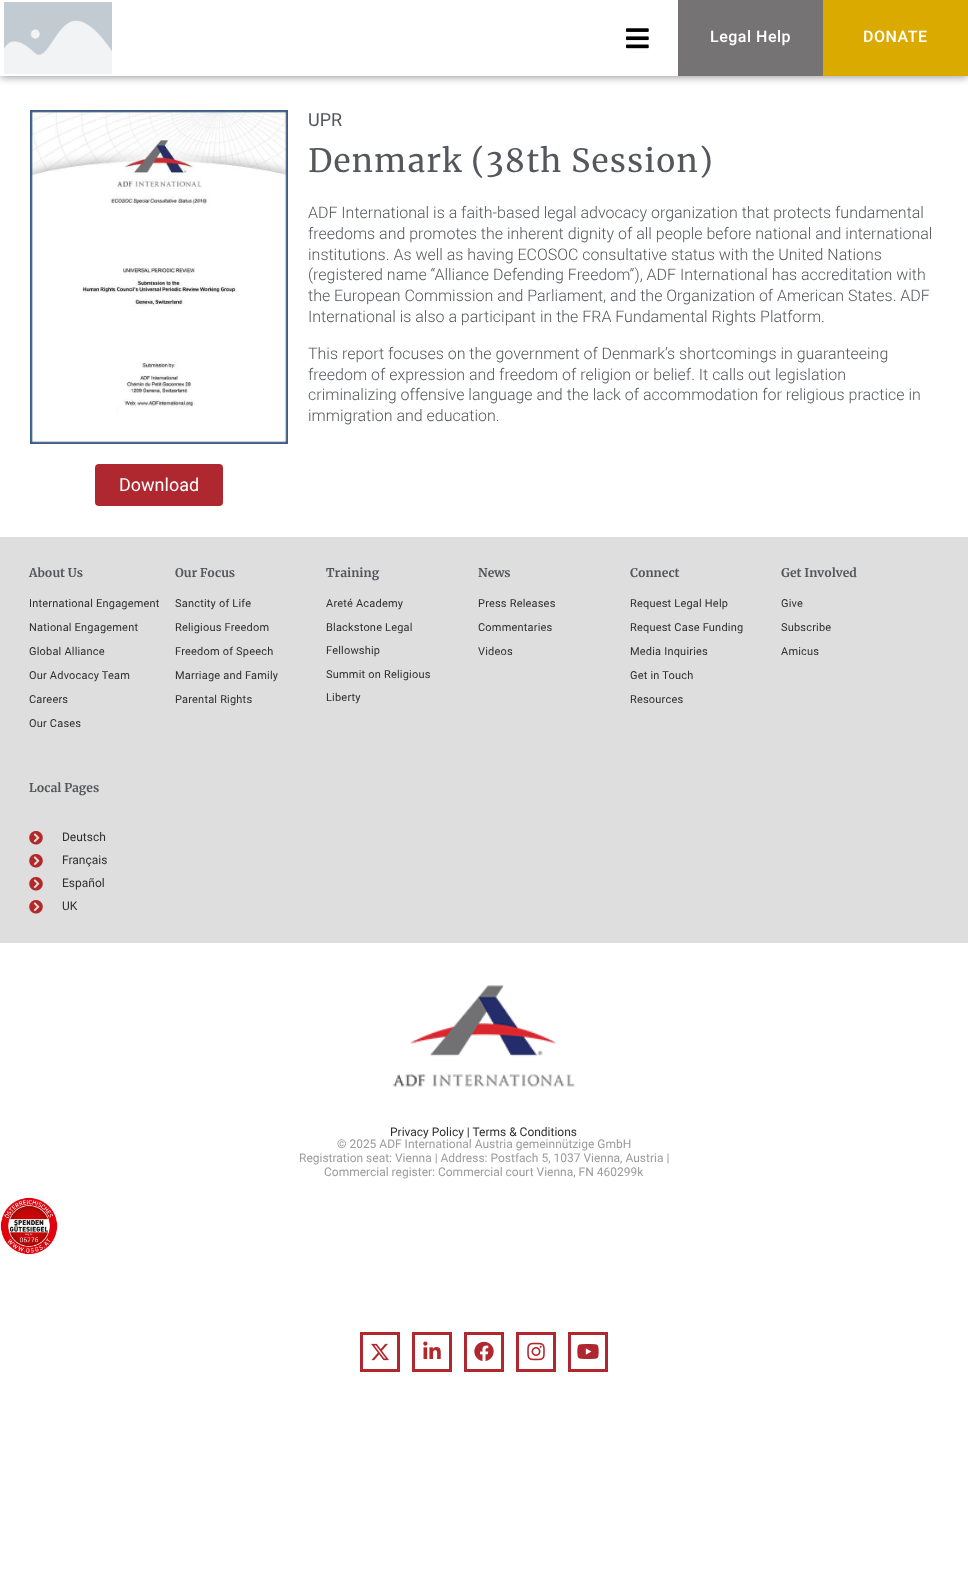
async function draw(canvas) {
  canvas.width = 968
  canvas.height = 1573
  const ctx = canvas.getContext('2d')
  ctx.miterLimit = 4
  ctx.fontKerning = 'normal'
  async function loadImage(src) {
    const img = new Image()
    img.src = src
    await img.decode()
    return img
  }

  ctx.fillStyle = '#fff'
  ctx.fillRect(0, 0, 968, 1573)
  ctx.save()
  ctx.beginPath()
  ctx.rect(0, 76, 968, 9)
  ctx.clip()
  ctx.fillStyle = '#00000080'
  ctx.filter = 'blur(5px)'
  ctx.beginPath()
  ctx.rect(0, 0, 968, 76)
  ctx.fill()
  ctx.filter = 'none'
  ctx.restore()
  ctx.drawImage(await loadImage('image0.png'), 4, 2, 108, 72)
  ctx.drawImage(await loadImage('image1.png'), 626, 28, 23, 21)
  ctx.fillStyle = '#757373'
  ctx.fillRect(678, 0, 145, 76)
  ctx.letterSpacing = '0.5px'
  ctx.font = '500 16px Roboto'
  ctx.fillStyle = '#fff'
  ctx.fillText('Legal Help', 710, 42)
  ctx.fillStyle = '#daaa00'
  ctx.fillRect(823, 0, 145, 76)
  ctx.fillStyle = '#fff'
  ctx.fillText('DONATE', 863, 42)
  ctx.letterSpacing = '0px'
  ctx.font = '18px Roboto'
  ctx.fillStyle = '#54575c'
  ctx.fillText('UPR', 308, 126)
  ctx.letterSpacing = '1.1px'
  ctx.font = '32px Merriweather'
  ctx.fillText('Denmark (38th Session)', 308, 172)
  ctx.letterSpacing = '0px'
  ctx.font = '300 16px Roboto'
  ctx.fillText('ADF International is a faith-based legal advocacy organization that protects fundamental', 308, 218)
  ctx.fillText('freedoms and promotes the inherent dignity of all people before national and international', 308, 239)
  ctx.fillText('institutions. As well as having ECOSOC consultative status with the United Nations', 308, 260)
  ctx.fillText('(registered name “Alliance Defending Freedom”), ADF International has accreditation with', 308, 280)
  ctx.fillText('the European Commission and Parliament, and the Organization of American States. ADF', 308, 301)
  ctx.fillText('International is also a participant in the FRA Fundamental Rights Platform.', 308, 322)
  ctx.fillText('This report focuses on the government of Denmark’s shortcomings in guaranteeing', 308, 359)
  ctx.fillText('freedom of expression and freedom of religion or belief. It calls out legislation', 308, 380)
  ctx.fillText('criminalizing offensive language and the lack of accommodation for religious practice in', 308, 400)
  ctx.fillText('immigration and education.', 308, 421)
  ctx.drawImage(await loadImage('image2.png'), 30, 110, 258, 334)
  ctx.fillStyle = '#af272f'
  ctx.beginPath()
  ctx.roundRect(95, 464, 128, 42, 4)
  ctx.fill()
  ctx.font = '18px Roboto'
  ctx.fillStyle = '#fff'
  ctx.fillText('Download', 119, 491)
  ctx.fillStyle = '#dfdede'
  ctx.fillRect(0, 537, 968, 406)
  ctx.font = 'bold 12px Merriweather'
  ctx.fillStyle = '#54575c'
  ctx.fillText('About Us', 29, 577)
  ctx.letterSpacing = '0.2px'
  ctx.font = '11px Roboto'
  ctx.fillStyle = '#2e2e2e'
  ctx.fillText('International Engagement', 29, 607)
  ctx.fillText('National Engagement', 29, 631)
  ctx.fillText('Global Alliance', 29, 655)
  ctx.fillText('Our Advocacy Team', 29, 679)
  ctx.fillText('Careers', 29, 703)
  ctx.fillText('Our Cases', 29, 727)
  ctx.letterSpacing = '0px'
  ctx.font = 'bold 12px Merriweather'
  ctx.fillStyle = '#54575c'
  ctx.fillText('Our Focus', 175, 577)
  ctx.letterSpacing = '0.2px'
  ctx.font = '11px Roboto'
  ctx.fillStyle = '#2e2e2e'
  ctx.fillText('Sanctity of Life', 175, 607)
  ctx.fillText('Religious Freedom', 175, 631)
  ctx.fillText('Freedom of Speech', 175, 655)
  ctx.fillText('Marriage and Family', 175, 679)
  ctx.fillText('Parental Rights', 175, 703)
  ctx.letterSpacing = '0px'
  ctx.font = 'bold 12px Merriweather'
  ctx.fillStyle = '#54575c'
  ctx.fillText('Training', 326, 577)
  ctx.letterSpacing = '0.2px'
  ctx.font = '11px Roboto'
  ctx.fillStyle = '#2e2e2e'
  ctx.fillText('Areté Academy', 326, 607)
  ctx.fillText('Blackstone Legal', 326, 631)
  ctx.fillText('Fellowship', 326, 654)
  ctx.fillText('Summit on Religious', 326, 678)
  ctx.fillText('Liberty', 326, 701)
  ctx.letterSpacing = '0px'
  ctx.font = 'bold 12px Merriweather'
  ctx.fillStyle = '#54575c'
  ctx.fillText('News', 478, 577)
  ctx.letterSpacing = '0.2px'
  ctx.font = '11px Roboto'
  ctx.fillStyle = '#2e2e2e'
  ctx.fillText('Press Releases', 478, 607)
  ctx.fillText('Commentaries', 478, 631)
  ctx.fillText('Videos', 478, 655)
  ctx.letterSpacing = '0px'
  ctx.font = 'bold 12px Merriweather'
  ctx.fillStyle = '#54575c'
  ctx.fillText('Connect', 630, 577)
  ctx.letterSpacing = '0.2px'
  ctx.font = '11px Roboto'
  ctx.fillStyle = '#2e2e2e'
  ctx.fillText('Request Legal Help', 630, 607)
  ctx.fillText('Request Case Funding', 630, 631)
  ctx.fillText('Media Inquiries', 630, 655)
  ctx.fillText('Get in Touch', 630, 679)
  ctx.fillText('Resources', 630, 703)
  ctx.letterSpacing = '0px'
  ctx.font = 'bold 12px Merriweather'
  ctx.fillStyle = '#54575c'
  ctx.fillText('Get Involved', 781, 577)
  ctx.letterSpacing = '0.2px'
  ctx.font = '11px Roboto'
  ctx.fillStyle = '#2e2e2e'
  ctx.fillText('Give', 781, 607)
  ctx.fillText('Subscribe', 781, 631)
  ctx.fillText('Amicus', 781, 655)
  ctx.letterSpacing = '0px'
  ctx.font = 'bold 12px Merriweather'
  ctx.fillStyle = '#54575c'
  ctx.fillText('Local Pages', 29, 792)
  ctx.drawImage(await loadImage('image3.png'), 29, 831, 14, 14)
  ctx.font = '12px Roboto'
  ctx.fillStyle = '#2e2e2e'
  ctx.fillText('Deutsch', 62, 841)
  ctx.drawImage(await loadImage('image3.png'), 29, 854, 14, 14)
  ctx.fillText('Français', 62, 864)
  ctx.drawImage(await loadImage('image3.png'), 29, 877, 14, 14)
  ctx.fillText('Español', 62, 887)
  ctx.drawImage(await loadImage('image3.png'), 29, 900, 14, 14)
  ctx.fillText('UK', 62, 910)
  ctx.drawImage(await loadImage('image4.png'), 392, 985, 183, 102)
  ctx.fillText('Privacy Policy | Terms & Conditions', 390, 1136)
  ctx.fillStyle = '#9b9b9b'
  ctx.fillText('© 2025 ADF International Austria gemeinnützige GmbH', 337, 1148)
  ctx.fillText('Registration seat: Vienna | Address: Postfach 5, 1037 Vienna, Austria |', 299, 1162)
  ctx.fillText('Commercial register: Commercial court Vienna, FN 460299k', 324, 1176)
  ctx.drawImage(await loadImage('image5.png'), 0, 1197, 58, 58)
  ctx.strokeStyle = '#af272f'
  ctx.lineWidth = 3
  ctx.strokeRect(361.5, 1333.5, 37, 37)
  ctx.drawImage(await loadImage('image6.png'), 371, 1343, 18, 18)
  ctx.strokeRect(413.5, 1333.5, 37, 37)
  ctx.drawImage(await loadImage('image7.png'), 423, 1341, 18, 18)
  ctx.strokeRect(465.5, 1333.5, 37, 37)
  ctx.drawImage(await loadImage('image8.png'), 474, 1341, 20, 20)
  ctx.strokeRect(517.5, 1333.5, 37, 37)
  ctx.drawImage(await loadImage('image9.png'), 527, 1342, 18, 19)
  ctx.strokeRect(569.5, 1333.5, 37, 37)
  ctx.drawImage(await loadImage('image10.png'), 577, 1344, 22, 15)
}

draw(document.querySelector('canvas'))
